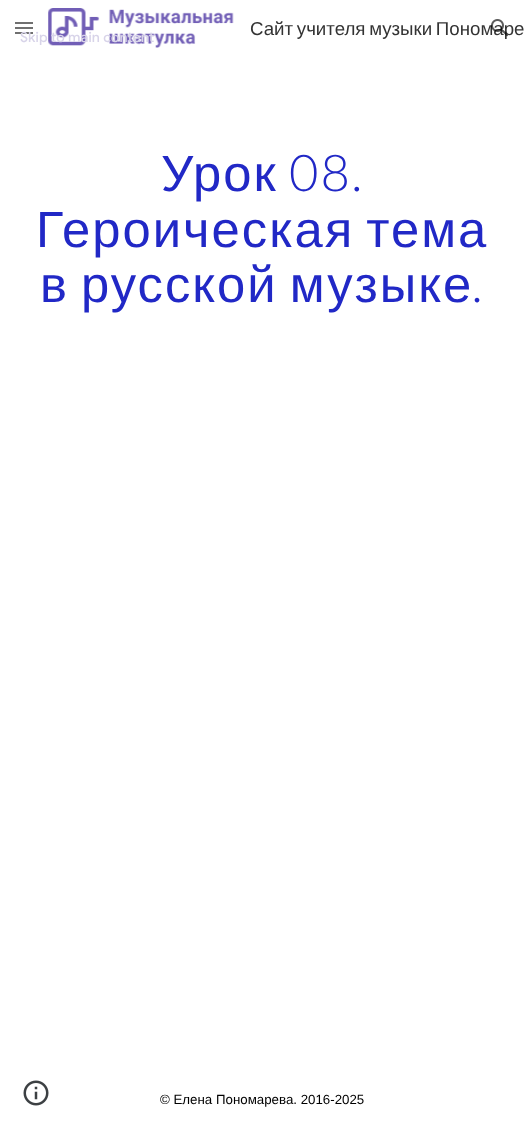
async function draw(canvas) {
  canvas.width = 524
  canvas.height = 1140
  const ctx = canvas.getContext('2d')
  ctx.miterLimit = 4
  ctx.fontKerning = 'normal'
  async function loadImage(src) {
    const img = new Image()
    img.src = src
    await img.decode()
    return img
  }

  ctx.fillStyle = '#fff'
  ctx.fillRect(0, 0, 524, 1140)
  ctx.wordSpacing = '-1.5px'
  ctx.font = '18.7px Liberation Sans'
  ctx.fillStyle = '#333'
  ctx.fillText('Сайт учителя музыки Пономаре', 250, 35)
  ctx.drawImage(await loadImage('image0.png'), 491, 19, 18, 18)
  ctx.fillStyle = '#707070'
  ctx.fillRect(15, 22, 18, 2)
  ctx.fillRect(15, 27, 18, 2)
  ctx.fillRect(15, 32, 18, 2)
  ctx.drawImage(await loadImage('image1.png'), 48, 8, 186, 40)
  ctx.letterSpacing = '2px'
  ctx.wordSpacing = '0px'
  ctx.font = '50.75px Liberation Sans'
  ctx.fillStyle = '#2128c6'
  ctx.fillText('Урок', 161, 191)
  ctx.font = '300 50.75px Lato'
  ctx.fillText('08.', 289, 191)
  ctx.wordSpacing = '-4px'
  ctx.font = '50.75px Liberation Sans'
  ctx.fillText('Героическая тема', 36, 247)
  ctx.fillText('в русской музыке', 40, 302)
  ctx.wordSpacing = '0px'
  ctx.font = '300 50.75px Lato'
  ctx.fillText('.', 472, 302)
  ctx.drawImage(await loadImage('image2.png'), 23, 1080, 26, 26)
  ctx.letterSpacing = '0px'
  ctx.font = '13.3px Liberation Sans'
  ctx.fillStyle = '#000'
  ctx.fillText('© Елена Пономарева. 2016-2025', 160, 1104)
  ctx.letterSpacing = '0.1px'
  ctx.font = '500 14px Google Sans'
  ctx.fillStyle = '#d8d4e9'
  ctx.fillText('Skip to main content', 20, 42)
}

draw(document.querySelector('canvas'))
